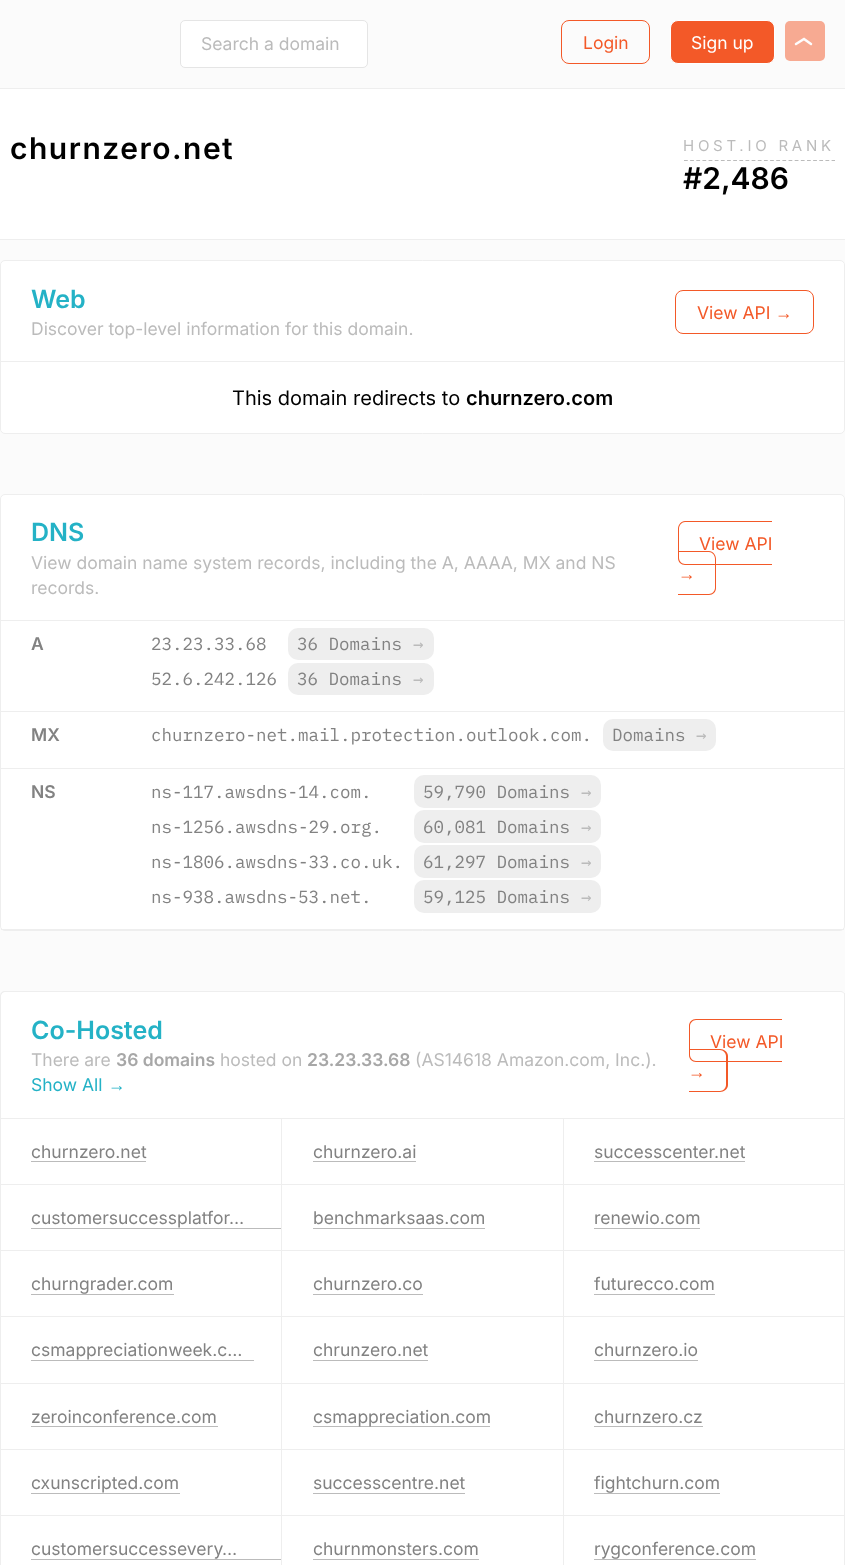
async function draw(canvas) {
  canvas.width = 845
  canvas.height = 1565
  const ctx = canvas.getContext('2d')
  ctx.miterLimit = 4
  ctx.fontKerning = 'normal'

  ctx.fillStyle = '#fff'
  ctx.fillRect(0, 0, 845, 1565)
  ctx.fillStyle = '#fbfbfb'
  ctx.fillRect(0, 0, 845, 88)
  ctx.fillStyle = '#eee'
  ctx.fillRect(0, 88, 845, 1)
  ctx.fillStyle = '#fff'
  ctx.beginPath()
  ctx.roundRect(180.5, 20.5, 187, 47, 4.5)
  ctx.fill()
  ctx.strokeStyle = '#e5e5e5'
  ctx.stroke()
  ctx.font = '17.5px Inter'
  ctx.fillStyle = '#bbb'
  ctx.fillText('Search a domain', 201, 50)
  ctx.beginPath()
  ctx.roundRect(561.5, 20.5, 88, 43, 7.5)
  ctx.strokeStyle = '#f35928'
  ctx.stroke()
  ctx.fillStyle = '#f35928'
  ctx.fillText('Login', 583, 49)
  ctx.beginPath()
  ctx.roundRect(670.5, 20.5, 104, 43, 7.5)
  ctx.fill()
  ctx.strokeStyle = '#fff'
  ctx.stroke()
  ctx.fillStyle = '#fff'
  ctx.fillText('Sign up', 691, 49)
  ctx.fillStyle = '#f7aa92'
  ctx.beginPath()
  ctx.roundRect(785, 21, 40, 40, 5)
  ctx.fill()
  ctx.beginPath()
  ctx.moveTo(796, 44)
  ctx.lineTo(804, 39)
  ctx.lineTo(811, 44)
  ctx.strokeStyle = '#fdfdfd'
  ctx.lineWidth = 2.5
  ctx.lineCap = 'round'
  ctx.stroke()
  ctx.letterSpacing = '1.5px'
  ctx.font = '600 30px Inter'
  ctx.fillStyle = '#000'
  ctx.fillText('churnzero.net', 10, 159)
  ctx.letterSpacing = '3.75px'
  ctx.font = '15px Inter'
  ctx.fillStyle = '#bbb'
  ctx.fillText('HOST.IO RANK', 683, 151)
  ctx.beginPath()
  ctx.moveTo(684, 160.5)
  ctx.lineTo(835, 160.5)
  ctx.strokeStyle = '#bbb'
  ctx.lineWidth = 1.2
  ctx.lineCap = 'butt'
  ctx.setLineDash([3.75, 2.4])
  ctx.stroke()
  ctx.letterSpacing = '0px'
  ctx.font = '600 30px Inter'
  ctx.fillStyle = '#000'
  ctx.fillText('#2,486', 683, 189)
  ctx.fillStyle = '#fbfbfb'
  ctx.fillRect(0, 240, 845, 756)
  ctx.fillStyle = '#eee'
  ctx.fillRect(0, 239, 845, 1)
  ctx.fillStyle = '#fff'
  ctx.beginPath()
  ctx.roundRect(0.5, 260.5, 844, 173, 4.5)
  ctx.fill()
  ctx.strokeStyle = '#eee'
  ctx.lineWidth = 1
  ctx.setLineDash([])
  ctx.stroke()
  ctx.fillStyle = '#eee'
  ctx.fillRect(1, 361, 843, 1)
  ctx.font = '600 25px Inter'
  ctx.fillStyle = '#24b2c6'
  ctx.fillText('Web', 31, 308)
  ctx.font = '17.5px Inter'
  ctx.fillStyle = '#bbb'
  ctx.fillText('Discover top-level information for this domain.', 31, 335)
  ctx.beginPath()
  ctx.roundRect(675.5, 290.5, 138, 43, 7.5)
  ctx.strokeStyle = '#f35928'
  ctx.stroke()
  ctx.fillStyle = '#f35928'
  ctx.fillText('View API', 697, 319)
  ctx.font = '17.5px Liberation Sans'
  ctx.fillText('→', 775, 319)
  ctx.font = '20px Inter'
  ctx.fillStyle = '#000'
  ctx.fillText('This domain redirects to', 232, 405)
  ctx.font = '600 20px Inter'
  ctx.fillText('churnzero.com', 466, 405)
  ctx.fillStyle = '#fff'
  ctx.beginPath()
  ctx.roundRect(0.5, 494.5, 844, 436, 4.5)
  ctx.fill()
  ctx.strokeStyle = '#eee'
  ctx.stroke()
  ctx.fillStyle = '#eee'
  ctx.fillRect(1, 620, 843, 1)
  ctx.font = '600 25px Inter'
  ctx.fillStyle = '#24b2c6'
  ctx.fillText('DNS', 31, 541)
  ctx.font = '17.5px Inter'
  ctx.fillStyle = '#bbb'
  ctx.fillText('View domain name system records, including the A, AAAA, MX and NS', 31, 569)
  ctx.fillText('records.', 31, 594)
  ctx.fillStyle = '#f35928'
  ctx.beginPath()
  ctx.moveTo(685, 521)
  ctx.lineTo(772, 521)
  ctx.lineTo(772, 565)
  ctx.lineTo(685, 565)
  ctx.bezierCurveTo(681, 565, 678, 562, 678, 558)
  ctx.lineTo(678, 529)
  ctx.bezierCurveTo(678, 525, 681, 521, 685, 521)
  ctx.closePath()
  ctx.moveTo(685, 522)
  ctx.lineTo(772, 522)
  ctx.lineTo(772, 564)
  ctx.lineTo(685, 564)
  ctx.bezierCurveTo(682, 564, 679, 561, 679, 558)
  ctx.lineTo(679, 529)
  ctx.bezierCurveTo(679, 525, 682, 522, 685, 522)
  ctx.closePath()
  ctx.fill('evenodd')
  ctx.fillText('View API', 699, 550)
  ctx.beginPath()
  ctx.moveTo(678, 551)
  ctx.lineTo(709, 551)
  ctx.bezierCurveTo(713, 551, 716, 555, 716, 559)
  ctx.lineTo(716, 588)
  ctx.bezierCurveTo(716, 592, 713, 595, 709, 595)
  ctx.lineTo(678, 595)
  ctx.closePath()
  ctx.moveTo(678, 552)
  ctx.lineTo(709, 552)
  ctx.bezierCurveTo(712, 552, 715, 555, 715, 559)
  ctx.lineTo(715, 588)
  ctx.bezierCurveTo(715, 591, 712, 594, 709, 594)
  ctx.lineTo(678, 594)
  ctx.closePath()
  ctx.fill('evenodd')
  ctx.font = '17.5px Liberation Sans'
  ctx.fillText('→', 678, 580)
  ctx.fillStyle = '#eee'
  ctx.fillRect(1, 711, 843, 1)
  ctx.font = '600 17.5px Inter'
  ctx.fillStyle = '#828282'
  ctx.fillText('A', 31, 650)
  ctx.font = '17.5px IBM Plex Mono'
  ctx.fillText('23.23.33.68', 151, 650)
  ctx.fillStyle = '#eee'
  ctx.beginPath()
  ctx.roundRect(288, 628, 125, 32, [10, 0, 0, 10])
  ctx.fill()
  ctx.fillStyle = '#828282'
  ctx.fillText('36 Domains', 297, 650)
  ctx.fillStyle = '#eee'
  ctx.beginPath()
  ctx.roundRect(413, 628, 21, 32, [0, 10, 10, 0])
  ctx.fill()
  ctx.font = '17.5px DejaVu Sans Mono'
  ctx.fillStyle = '#bbb'
  ctx.fillText('→', 413, 650)
  ctx.font = '17.5px IBM Plex Mono'
  ctx.fillStyle = '#828282'
  ctx.fillText('52.6.242.126', 151, 685)
  ctx.fillStyle = '#eee'
  ctx.beginPath()
  ctx.roundRect(288, 663, 125, 32, [10, 0, 0, 10])
  ctx.fill()
  ctx.fillStyle = '#828282'
  ctx.fillText('36 Domains', 297, 685)
  ctx.fillStyle = '#eee'
  ctx.beginPath()
  ctx.roundRect(413, 663, 21, 32, [0, 10, 10, 0])
  ctx.fill()
  ctx.font = '17.5px DejaVu Sans Mono'
  ctx.fillStyle = '#bbb'
  ctx.fillText('→', 413, 685)
  ctx.fillStyle = '#eee'
  ctx.fillRect(1, 768, 843, 1)
  ctx.font = '600 17.5px Inter'
  ctx.fillStyle = '#828282'
  ctx.fillText('MX', 31, 741)
  ctx.font = '17.5px IBM Plex Mono'
  ctx.fillText('churnzero-net.mail.protection.outlook.com.', 151, 741)
  ctx.fillStyle = '#eee'
  ctx.beginPath()
  ctx.roundRect(603, 719, 93, 32, [10, 0, 0, 10])
  ctx.fill()
  ctx.fillStyle = '#828282'
  ctx.fillText('Domains', 612, 741)
  ctx.fillStyle = '#eee'
  ctx.beginPath()
  ctx.roundRect(696, 719, 20, 32, [0, 10, 10, 0])
  ctx.fill()
  ctx.font = '17.5px DejaVu Sans Mono'
  ctx.fillStyle = '#bbb'
  ctx.fillText('→', 696, 741)
  ctx.fillStyle = '#eee'
  ctx.fillRect(1, 929, 843, 1)
  ctx.font = '600 17.5px Inter'
  ctx.fillStyle = '#828282'
  ctx.fillText('NS', 31, 798)
  ctx.font = '17.5px IBM Plex Mono'
  ctx.fillText('ns-117.awsdns-14.com.', 151, 798)
  ctx.fillStyle = '#eee'
  ctx.beginPath()
  ctx.roundRect(414, 775, 167, 33, [10, 0, 0, 10])
  ctx.fill()
  ctx.fillStyle = '#828282'
  ctx.fillText('59,790 Domains', 423, 798)
  ctx.fillStyle = '#eee'
  ctx.beginPath()
  ctx.roundRect(581, 775, 20, 33, [0, 10, 10, 0])
  ctx.fill()
  ctx.font = '17.5px DejaVu Sans Mono'
  ctx.fillStyle = '#bbb'
  ctx.fillText('→', 581, 798)
  ctx.font = '17.5px IBM Plex Mono'
  ctx.fillStyle = '#828282'
  ctx.fillText('ns-1256.awsdns-29.org.', 151, 833)
  ctx.fillStyle = '#eee'
  ctx.beginPath()
  ctx.roundRect(414, 810, 167, 33, [10, 0, 0, 10])
  ctx.fill()
  ctx.fillStyle = '#828282'
  ctx.fillText('60,081 Domains', 423, 833)
  ctx.fillStyle = '#eee'
  ctx.beginPath()
  ctx.roundRect(581, 810, 20, 33, [0, 10, 10, 0])
  ctx.fill()
  ctx.font = '17.5px DejaVu Sans Mono'
  ctx.fillStyle = '#bbb'
  ctx.fillText('→', 581, 833)
  ctx.font = '17.5px IBM Plex Mono'
  ctx.fillStyle = '#828282'
  ctx.fillText('ns-1806.awsdns-33.co.uk.', 151, 868)
  ctx.fillStyle = '#eee'
  ctx.beginPath()
  ctx.roundRect(414, 845, 167, 33, [10, 0, 0, 10])
  ctx.fill()
  ctx.fillStyle = '#828282'
  ctx.fillText('61,297 Domains', 423, 868)
  ctx.fillStyle = '#eee'
  ctx.beginPath()
  ctx.roundRect(581, 845, 20, 33, [0, 10, 10, 0])
  ctx.fill()
  ctx.font = '17.5px DejaVu Sans Mono'
  ctx.fillStyle = '#bbb'
  ctx.fillText('→', 581, 868)
  ctx.font = '17.5px IBM Plex Mono'
  ctx.fillStyle = '#828282'
  ctx.fillText('ns-938.awsdns-53.net.', 151, 903)
  ctx.fillStyle = '#eee'
  ctx.beginPath()
  ctx.roundRect(414, 880, 167, 33, [10, 0, 0, 10])
  ctx.fill()
  ctx.fillStyle = '#828282'
  ctx.fillText('59,125 Domains', 423, 903)
  ctx.fillStyle = '#eee'
  ctx.beginPath()
  ctx.roundRect(581, 880, 20, 33, [0, 10, 10, 0])
  ctx.fill()
  ctx.font = '17.5px DejaVu Sans Mono'
  ctx.fillStyle = '#bbb'
  ctx.fillText('→', 581, 903)
  ctx.fillStyle = '#fff'
  ctx.beginPath()
  ctx.moveTo(5, 992)
  ctx.lineTo(840, 992)
  ctx.bezierCurveTo(843, 992, 845, 994, 845, 996)
  ctx.lineTo(845, 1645)
  ctx.bezierCurveTo(845, 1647, 843, 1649, 840, 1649)
  ctx.lineTo(5, 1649)
  ctx.bezierCurveTo(3, 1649, 1, 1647, 1, 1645)
  ctx.lineTo(1, 996)
  ctx.bezierCurveTo(1, 994, 3, 992, 5, 992)
  ctx.closePath()
  ctx.fill()
  ctx.fillStyle = '#eee'
  ctx.beginPath()
  ctx.moveTo(5, 991)
  ctx.lineTo(840, 991)
  ctx.bezierCurveTo(843, 991, 845, 993, 845, 996)
  ctx.lineTo(845, 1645)
  ctx.bezierCurveTo(845, 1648, 843, 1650, 840, 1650)
  ctx.lineTo(5, 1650)
  ctx.bezierCurveTo(2, 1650, 0, 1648, 0, 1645)
  ctx.lineTo(0, 996)
  ctx.bezierCurveTo(0, 993, 2, 991, 5, 991)
  ctx.closePath()
  ctx.moveTo(5, 992)
  ctx.lineTo(840, 992)
  ctx.bezierCurveTo(843, 992, 845, 994, 845, 996)
  ctx.lineTo(845, 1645)
  ctx.bezierCurveTo(845, 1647, 843, 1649, 840, 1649)
  ctx.lineTo(5, 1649)
  ctx.bezierCurveTo(3, 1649, 1, 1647, 1, 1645)
  ctx.lineTo(1, 996)
  ctx.bezierCurveTo(1, 994, 3, 992, 5, 992)
  ctx.closePath()
  ctx.fill('evenodd')
  ctx.fillRect(844, 993, 1, 572)
  ctx.fillRect(1, 1118, 844, 1)
  ctx.font = '600 25px Inter'
  ctx.fillStyle = '#24b2c6'
  ctx.fillText('Co-Hosted', 31, 1039)
  ctx.font = '17.5px Inter'
  ctx.fillStyle = '#bbb'
  ctx.fillText('There are', 31, 1066)
  ctx.font = '600 17.5px Inter'
  ctx.fillStyle = '#a7a7a7'
  ctx.fillText('36 domains', 116, 1066)
  ctx.font = '17.5px Inter'
  ctx.fillStyle = '#bbb'
  ctx.fillText('hosted on', 220, 1066)
  ctx.font = '600 17.5px Inter'
  ctx.fillStyle = '#a7a7a7'
  ctx.fillText('23.23.33.68', 307, 1066)
  ctx.font = '17.5px Inter'
  ctx.fillStyle = '#bbb'
  ctx.fillText('(AS14618 Amazon.com, Inc.).', 415, 1066)
  ctx.fillStyle = '#24b2c6'
  ctx.fillText('Show All', 31, 1091)
  ctx.font = '17.5px Liberation Sans'
  ctx.fillText('→', 108, 1091)
  ctx.fillStyle = '#f35928'
  ctx.beginPath()
  ctx.moveTo(696, 1019)
  ctx.lineTo(782, 1019)
  ctx.lineTo(782, 1062)
  ctx.lineTo(696, 1062)
  ctx.bezierCurveTo(692, 1062, 689, 1059, 689, 1055)
  ctx.lineTo(689, 1026)
  ctx.bezierCurveTo(689, 1022, 692, 1019, 696, 1019)
  ctx.closePath()
  ctx.moveTo(696, 1020)
  ctx.lineTo(782, 1020)
  ctx.lineTo(782, 1061)
  ctx.lineTo(696, 1061)
  ctx.bezierCurveTo(693, 1061, 690, 1058, 690, 1055)
  ctx.lineTo(690, 1026)
  ctx.bezierCurveTo(690, 1023, 693, 1020, 696, 1020)
  ctx.closePath()
  ctx.fill('evenodd')
  ctx.font = '17.5px Inter'
  ctx.fillText('View API', 710, 1048)
  ctx.beginPath()
  ctx.moveTo(689, 1049)
  ctx.lineTo(720, 1049)
  ctx.bezierCurveTo(724, 1049, 728, 1052, 728, 1056)
  ctx.lineTo(728, 1085)
  ctx.bezierCurveTo(728, 1089, 724, 1092, 720, 1092)
  ctx.lineTo(689, 1092)
  ctx.closePath()
  ctx.moveTo(689, 1050)
  ctx.lineTo(720, 1050)
  ctx.bezierCurveTo(723, 1050, 726, 1053, 726, 1056)
  ctx.lineTo(726, 1085)
  ctx.bezierCurveTo(726, 1088, 723, 1091, 720, 1091)
  ctx.lineTo(689, 1091)
  ctx.closePath()
  ctx.fill('evenodd')
  ctx.font = '17.5px Liberation Sans'
  ctx.fillText('→', 688, 1078)
  ctx.fillStyle = '#eee'
  ctx.fillRect(281, 1119, 1, 446)
  ctx.fillRect(1, 1184, 282, 1)
  ctx.font = '17.5px Inter'
  ctx.fillStyle = '#828282'
  ctx.fillText('churnzero.net', 31, 1158)
  ctx.fillStyle = '#bbb'
  ctx.fillRect(31, 1161, 115, 1)
  ctx.fillStyle = '#eee'
  ctx.fillRect(563, 1119, 1, 446)
  ctx.fillRect(283, 1184, 562, 1)
  ctx.fillStyle = '#828282'
  ctx.fillText('churnzero.ai', 313, 1158)
  ctx.fillStyle = '#bbb'
  ctx.fillRect(313, 1161, 103, 1)
  ctx.fillStyle = '#828282'
  ctx.fillText('successcenter.net', 594, 1158)
  ctx.fillStyle = '#bbb'
  ctx.fillRect(594, 1161, 151, 1)
  ctx.fillStyle = '#eee'
  ctx.fillRect(1, 1250, 844, 1)
  ctx.fillStyle = '#828282'
  ctx.fillText('customersuccessplatfor…', 31, 1224)
  ctx.fillStyle = '#bbb'
  ctx.fillRect(31, 1228, 250, 1)
  ctx.fillStyle = '#828282'
  ctx.fillText('benchmarksaas.com', 313, 1224)
  ctx.fillStyle = '#bbb'
  ctx.fillRect(313, 1228, 172, 1)
  ctx.fillStyle = '#828282'
  ctx.fillText('renewio.com', 594, 1224)
  ctx.fillStyle = '#bbb'
  ctx.fillRect(594, 1228, 106, 1)
  ctx.fillStyle = '#eee'
  ctx.fillRect(1, 1316, 844, 1)
  ctx.fillStyle = '#828282'
  ctx.fillText('churngrader.com', 31, 1290)
  ctx.fillStyle = '#bbb'
  ctx.fillRect(31, 1294, 143, 1)
  ctx.fillStyle = '#828282'
  ctx.fillText('churnzero.co', 313, 1290)
  ctx.fillStyle = '#bbb'
  ctx.fillRect(313, 1294, 110, 1)
  ctx.fillStyle = '#828282'
  ctx.fillText('futurecco.com', 594, 1290)
  ctx.fillStyle = '#bbb'
  ctx.fillRect(594, 1294, 121, 1)
  ctx.fillStyle = '#eee'
  ctx.fillRect(1, 1383, 844, 1)
  ctx.fillStyle = '#828282'
  ctx.fillText('csmappreciationweek.c…', 31, 1356)
  ctx.fillStyle = '#bbb'
  ctx.fillRect(31, 1360, 223, 1)
  ctx.fillStyle = '#828282'
  ctx.fillText('chrunzero.net', 313, 1356)
  ctx.fillStyle = '#bbb'
  ctx.fillRect(313, 1360, 115, 1)
  ctx.fillStyle = '#828282'
  ctx.fillText('churnzero.io', 594, 1356)
  ctx.fillStyle = '#bbb'
  ctx.fillRect(594, 1360, 104, 1)
  ctx.fillStyle = '#eee'
  ctx.fillRect(1, 1449, 844, 1)
  ctx.fillStyle = '#828282'
  ctx.fillText('zeroinconference.com', 31, 1423)
  ctx.fillStyle = '#bbb'
  ctx.fillRect(31, 1426, 187, 1)
  ctx.fillRect(313, 1426, 177, 1)
  ctx.fillStyle = '#828282'
  ctx.fillText('csmappreciation.com', 313, 1423)
  ctx.fillText('churnzero.cz', 594, 1423)
  ctx.fillStyle = '#bbb'
  ctx.fillRect(594, 1426, 109, 1)
  ctx.fillStyle = '#eee'
  ctx.fillRect(1, 1515, 844, 1)
  ctx.fillStyle = '#828282'
  ctx.fillText('cxunscripted.com', 31, 1489)
  ctx.fillStyle = '#bbb'
  ctx.fillRect(31, 1493, 149, 1)
  ctx.fillStyle = '#828282'
  ctx.fillText('successcentre.net', 313, 1489)
  ctx.fillStyle = '#bbb'
  ctx.fillRect(313, 1493, 152, 1)
  ctx.fillStyle = '#828282'
  ctx.fillText('fightchurn.com', 594, 1489)
  ctx.fillStyle = '#bbb'
  ctx.fillRect(594, 1493, 126, 1)
  ctx.fillStyle = '#828282'
  ctx.fillText('customersuccessevery…', 31, 1555)
  ctx.fillStyle = '#bbb'
  ctx.fillRect(31, 1559, 250, 1)
  ctx.fillStyle = '#828282'
  ctx.fillText('churnmonsters.com', 313, 1555)
  ctx.fillStyle = '#bbb'
  ctx.fillRect(313, 1559, 166, 1)
  ctx.fillStyle = '#828282'
  ctx.fillText('rygconference.com', 594, 1555)
  ctx.fillStyle = '#bbb'
  ctx.fillRect(594, 1559, 162, 1)
}

draw(document.querySelector('canvas'))
